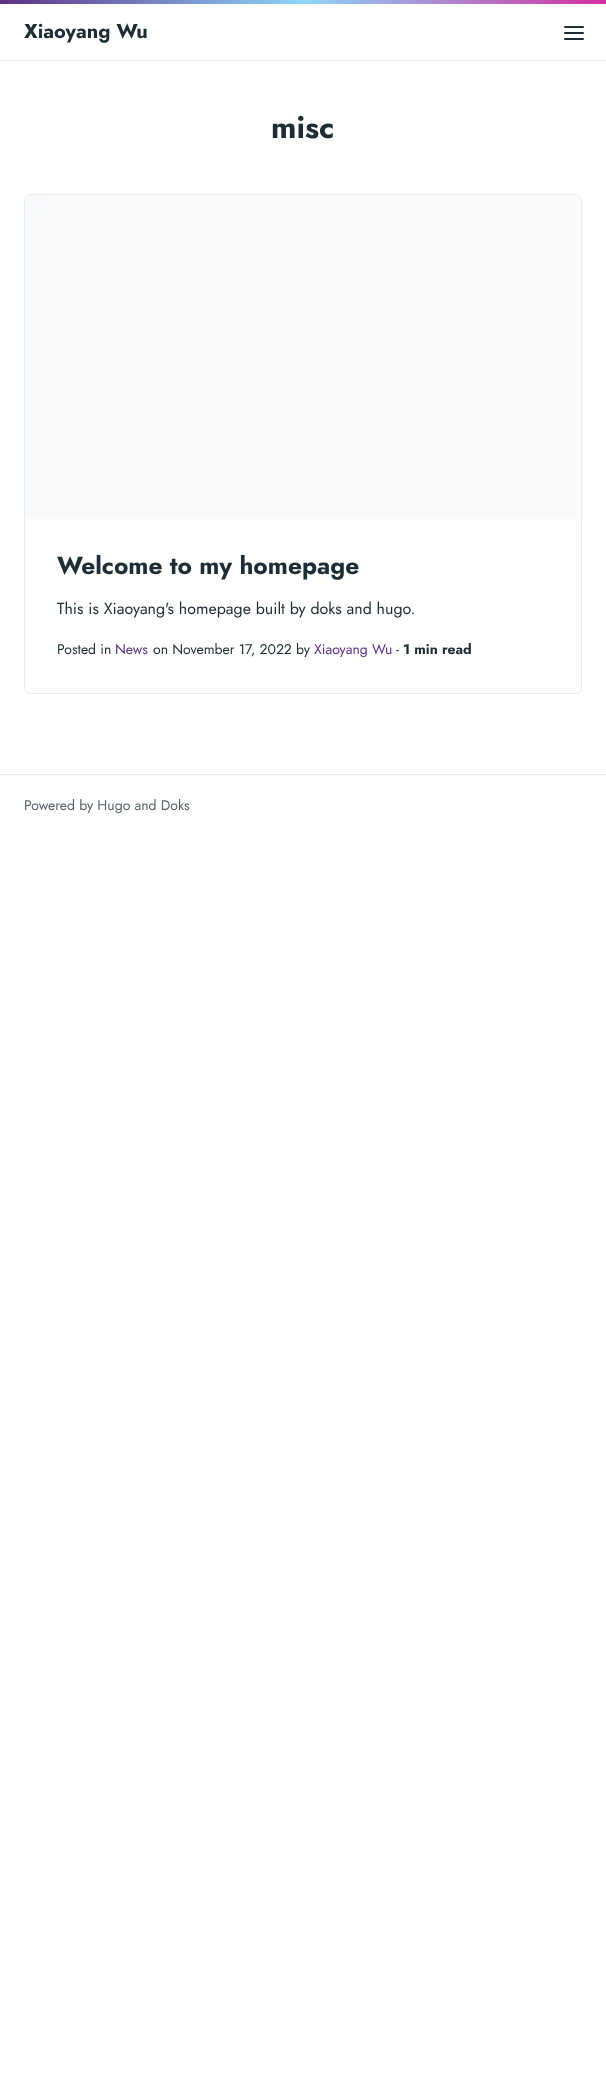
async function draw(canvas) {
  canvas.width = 606
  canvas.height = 2085
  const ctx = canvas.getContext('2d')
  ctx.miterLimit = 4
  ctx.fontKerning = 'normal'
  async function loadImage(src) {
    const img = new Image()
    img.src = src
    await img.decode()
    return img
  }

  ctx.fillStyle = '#fff'
  ctx.fillRect(0, 0, 606, 2085)
  ctx.drawImage(await loadImage('image0.png'), 0, 0, 606, 4)
  ctx.fillStyle = '#e9ecef'
  ctx.fillRect(0, 60, 606, 1)
  ctx.font = 'bold 20px Jost'
  ctx.fillStyle = '#1d2d35'
  ctx.fillText('Xiaoyang Wu', 24, 38)
  ctx.beginPath()
  ctx.moveTo(565, 33)
  ctx.lineTo(583, 33)
  ctx.moveTo(565, 27)
  ctx.lineTo(583, 27)
  ctx.moveTo(565, 39)
  ctx.lineTo(583, 39)
  ctx.strokeStyle = '#1d2d35'
  ctx.lineWidth = 2
  ctx.lineCap = 'round'
  ctx.lineJoin = 'round'
  ctx.stroke()
  ctx.font = 'bold 31px Jost'
  ctx.fillText('misc', 271, 138)
  ctx.beginPath()
  ctx.roundRect(24.5, 194.5, 557, 499, 5.5)
  ctx.strokeStyle = '#e9ecef'
  ctx.lineWidth = 1
  ctx.lineJoin = 'miter'
  ctx.stroke()
  ctx.drawImage(await loadImage('image1.png'), 25, 195, 556, 324)
  ctx.font = 'bold 24.5px Jost'
  ctx.fillText('Welcome to my homepage', 57, 574)
  ctx.font = '16px Jost'
  ctx.fillText('This is Xiaoyang\'s homepage built by doks and hugo.', 57, 614)
  ctx.font = '14px Jost'
  ctx.fillText('Posted in', 57, 654)
  ctx.fillStyle = '#5d2f86'
  ctx.fillText('News', 115, 654)
  ctx.fillStyle = '#1d2d35'
  ctx.fillText('on November 17, 2022 by', 153, 654)
  ctx.fillStyle = '#5d2f86'
  ctx.fillText('Xiaoyang Wu', 314, 654)
  ctx.fillStyle = '#1d2d35'
  ctx.fillText('‐', 396, 654)
  ctx.font = 'bold 14px Jost'
  ctx.fillText('1 min read', 403, 654)
  ctx.fillStyle = '#e9ecef'
  ctx.fillRect(0, 774, 606, 1)
  ctx.font = '14px Jost'
  ctx.fillStyle = '#566268'
  ctx.fillText('Powered by Hugo and Doks', 24, 810)
}

draw(document.querySelector('canvas'))
